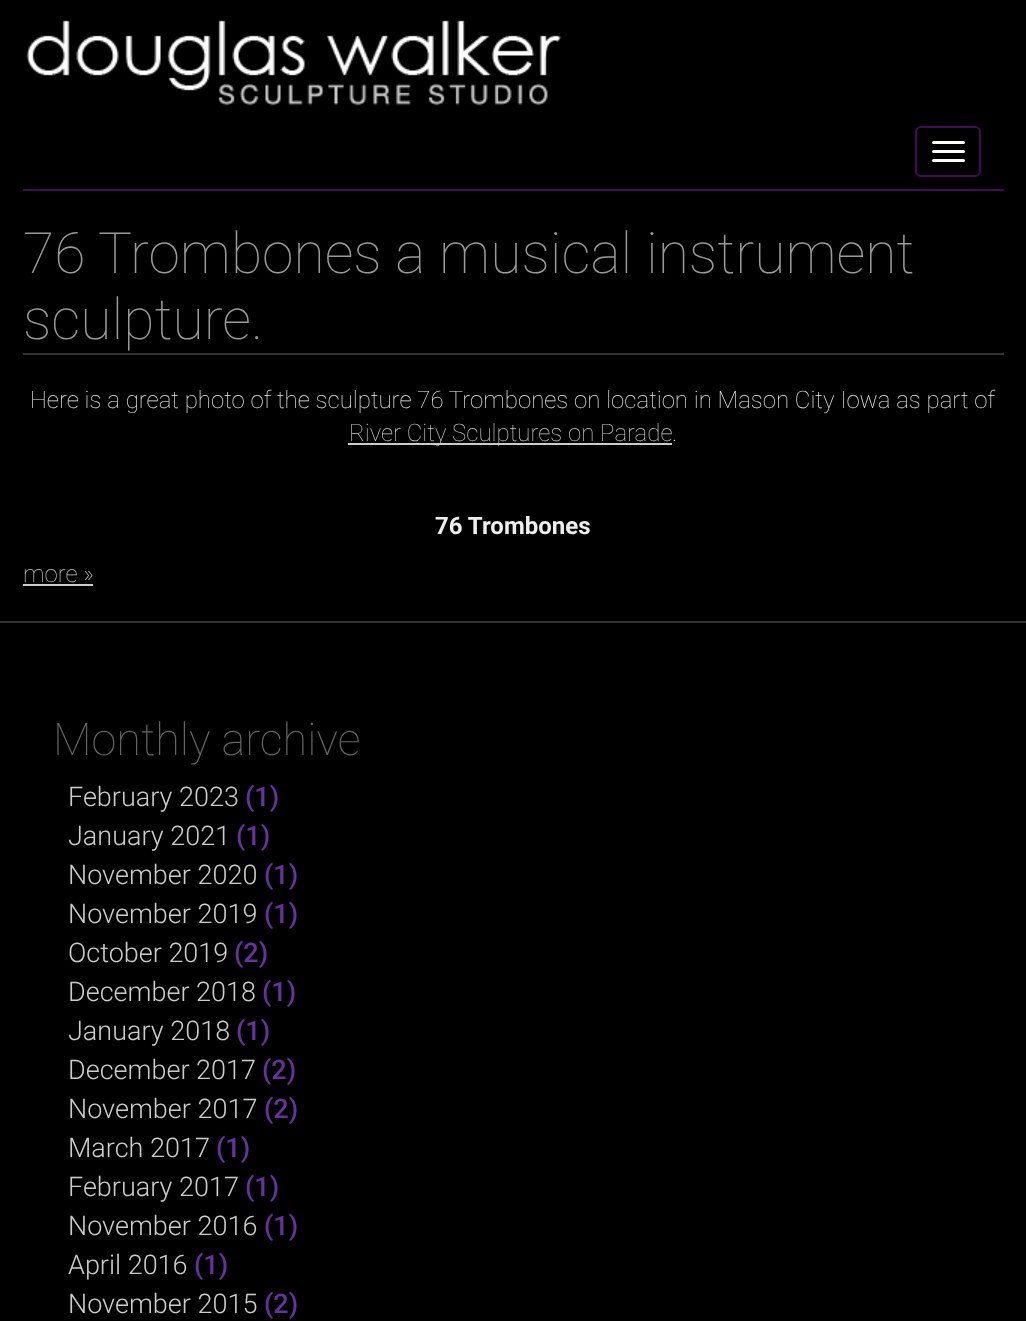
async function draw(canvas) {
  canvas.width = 1026
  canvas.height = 1321
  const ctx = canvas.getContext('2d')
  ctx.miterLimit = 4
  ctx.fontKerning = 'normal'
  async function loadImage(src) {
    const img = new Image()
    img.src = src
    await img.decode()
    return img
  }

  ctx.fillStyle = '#000'
  ctx.fillRect(0, 0, 1026, 1321)
  ctx.fillStyle = '#430c58'
  ctx.fillRect(23, 189, 981, 2)
  ctx.drawImage(await loadImage('image0.png'), 26, 20, 536, 86)
  ctx.beginPath()
  ctx.roundRect(916, 127, 64, 49, 5)
  ctx.strokeStyle = '#430c58'
  ctx.lineWidth = 2
  ctx.stroke()
  ctx.fillStyle = '#fff'
  ctx.beginPath()
  ctx.roundRect(932, 141, 33, 3, 1.5)
  ctx.fill()
  ctx.beginPath()
  ctx.roundRect(932, 150, 33, 3, 1.5)
  ctx.fill()
  ctx.beginPath()
  ctx.roundRect(932, 159, 33, 3, 1.5)
  ctx.fill()
  ctx.fillStyle = '#333'
  ctx.fillRect(23, 353, 981, 2)
  ctx.font = '100 57px Roboto'
  ctx.fillStyle = '#999'
  ctx.fillText('76 Trombones a musical instrument', 23, 273)
  ctx.fillText('sculpture.', 23, 339)
  ctx.fillStyle = '#333'
  ctx.fillRect(0, 621, 1026, 2)
  ctx.font = '100 24px Roboto'
  ctx.fillStyle = '#eee'
  ctx.fillText('Here is a great photo of the sculpture 76 Trombones on location in Mason City Iowa as part of', 30, 408)
  ctx.fillStyle = '#ccc'
  ctx.fillRect(348, 443, 324, 2)
  ctx.fillText('River City Sculptures on Parade', 349, 441)
  ctx.fillStyle = '#eee'
  ctx.fillText('.', 672, 441)
  ctx.font = 'bold 24px Roboto'
  ctx.fillText('76 Trombones', 435, 534)
  ctx.font = '100 24px Roboto'
  ctx.fillStyle = '#ccc'
  ctx.fillText('more »', 23, 582)
  ctx.fillRect(23, 584, 70, 2)
  ctx.font = '100 45px Roboto'
  ctx.fillStyle = '#666'
  ctx.fillText('Monthly archive', 53, 755)
  ctx.font = '300 27px Roboto'
  ctx.fillStyle = '#ccc'
  ctx.fillText('February 2023', 68, 806)
  ctx.font = '500 27px Roboto'
  ctx.fillStyle = '#639'
  ctx.fillText('(1)', 245, 806)
  ctx.font = '300 27px Roboto'
  ctx.fillStyle = '#ccc'
  ctx.fillText('January 2021', 68, 845)
  ctx.font = '500 27px Roboto'
  ctx.fillStyle = '#639'
  ctx.fillText('(1)', 236, 845)
  ctx.font = '300 27px Roboto'
  ctx.fillStyle = '#ccc'
  ctx.fillText('November 2020', 68, 884)
  ctx.font = '500 27px Roboto'
  ctx.fillStyle = '#639'
  ctx.fillText('(1)', 264, 884)
  ctx.font = '300 27px Roboto'
  ctx.fillStyle = '#ccc'
  ctx.fillText('November 2019', 68, 923)
  ctx.font = '500 27px Roboto'
  ctx.fillStyle = '#639'
  ctx.fillText('(1)', 264, 923)
  ctx.font = '300 27px Roboto'
  ctx.fillStyle = '#ccc'
  ctx.fillText('October 2019', 68, 962)
  ctx.font = '500 27px Roboto'
  ctx.fillStyle = '#639'
  ctx.fillText('(2)', 234, 962)
  ctx.font = '300 27px Roboto'
  ctx.fillStyle = '#ccc'
  ctx.fillText('December 2018', 68, 1001)
  ctx.font = '500 27px Roboto'
  ctx.fillStyle = '#639'
  ctx.fillText('(1)', 262, 1001)
  ctx.font = '300 27px Roboto'
  ctx.fillStyle = '#ccc'
  ctx.fillText('January 2018', 68, 1040)
  ctx.font = '500 27px Roboto'
  ctx.fillStyle = '#639'
  ctx.fillText('(1)', 236, 1040)
  ctx.font = '300 27px Roboto'
  ctx.fillStyle = '#ccc'
  ctx.fillText('December 2017', 68, 1079)
  ctx.font = '500 27px Roboto'
  ctx.fillStyle = '#639'
  ctx.fillText('(2)', 262, 1079)
  ctx.font = '300 27px Roboto'
  ctx.fillStyle = '#ccc'
  ctx.fillText('November 2017', 68, 1118)
  ctx.font = '500 27px Roboto'
  ctx.fillStyle = '#639'
  ctx.fillText('(2)', 264, 1118)
  ctx.font = '300 27px Roboto'
  ctx.fillStyle = '#ccc'
  ctx.fillText('March 2017', 68, 1157)
  ctx.font = '500 27px Roboto'
  ctx.fillStyle = '#639'
  ctx.fillText('(1)', 216, 1157)
  ctx.font = '300 27px Roboto'
  ctx.fillStyle = '#ccc'
  ctx.fillText('February 2017', 68, 1196)
  ctx.font = '500 27px Roboto'
  ctx.fillStyle = '#639'
  ctx.fillText('(1)', 245, 1196)
  ctx.font = '300 27px Roboto'
  ctx.fillStyle = '#ccc'
  ctx.fillText('November 2016', 68, 1235)
  ctx.font = '500 27px Roboto'
  ctx.fillStyle = '#639'
  ctx.fillText('(1)', 264, 1235)
  ctx.font = '300 27px Roboto'
  ctx.fillStyle = '#ccc'
  ctx.fillText('April 2016', 68, 1274)
  ctx.font = '500 27px Roboto'
  ctx.fillStyle = '#639'
  ctx.fillText('(1)', 194, 1274)
  ctx.font = '300 27px Roboto'
  ctx.fillStyle = '#ccc'
  ctx.fillText('November 2015', 68, 1313)
  ctx.font = '500 27px Roboto'
  ctx.fillStyle = '#639'
  ctx.fillText('(2)', 264, 1313)
}

draw(document.querySelector('canvas'))
